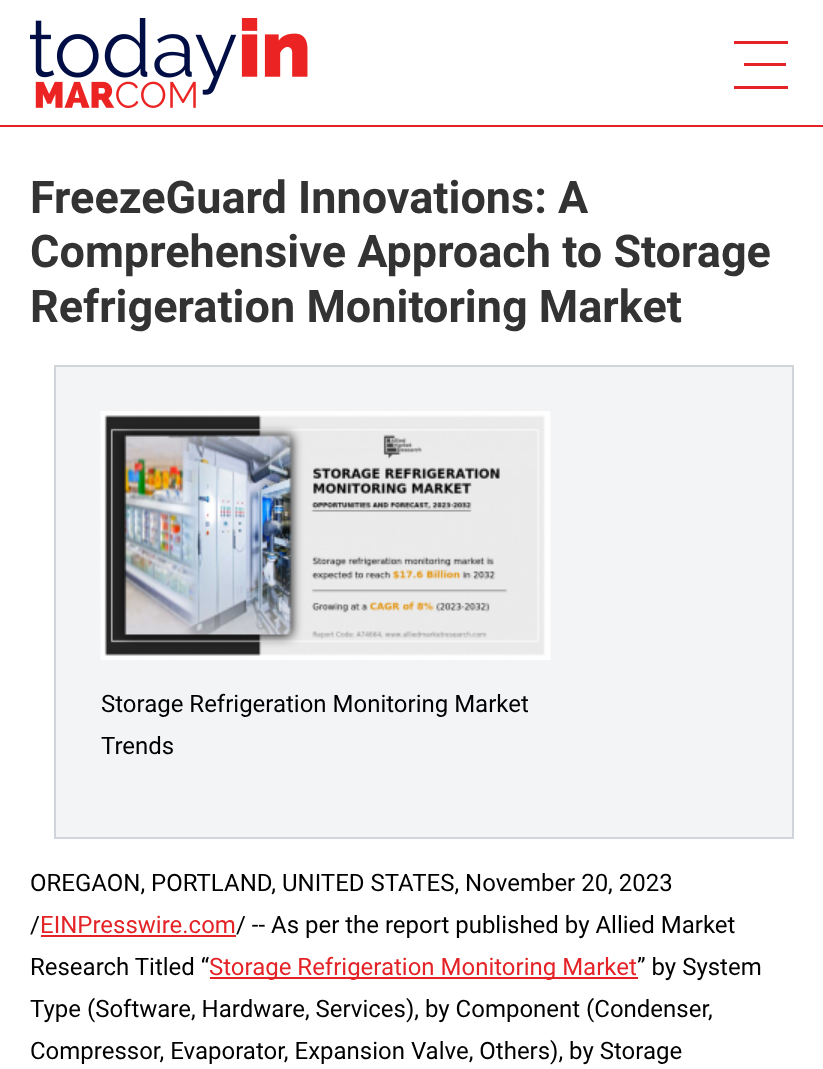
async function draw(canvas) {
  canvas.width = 823
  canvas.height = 1069
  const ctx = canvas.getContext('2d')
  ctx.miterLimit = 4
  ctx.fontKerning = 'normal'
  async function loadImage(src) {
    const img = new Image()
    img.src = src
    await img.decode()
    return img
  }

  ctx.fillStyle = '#fff'
  ctx.fillRect(0, 0, 823, 1069)
  ctx.drawImage(await loadImage('image0.png'), 30, 18, 278, 90)
  ctx.fillStyle = '#e42327'
  ctx.fillRect(734, 41, 54, 3)
  ctx.fillRect(744, 63, 42, 3)
  ctx.fillRect(734, 86, 54, 3)
  ctx.fillRect(0, 125, 823, 2)
  ctx.font = 'bold 45px Roboto'
  ctx.fillStyle = '#333'
  ctx.fillText('FreezeGuard Innovations: A', 30, 213)
  ctx.fillText('Comprehensive Approach to Storage', 30, 267)
  ctx.fillText('Refrigeration Monitoring Market', 30, 322)
  ctx.fillStyle = '#f3f4f6'
  ctx.beginPath()
  ctx.rect(55, 366, 738, 472)
  ctx.fill()
  ctx.strokeStyle = '#d1d5db'
  ctx.lineWidth = 2
  ctx.stroke()
  ctx.drawImage(await loadImage('image1.png'), 100, 411, 451, 249)
  ctx.font = '24px Roboto'
  ctx.fillStyle = '#000'
  ctx.fillText('Storage Refrigeration Monitoring Market', 101, 712)
  ctx.fillText('Trends', 101, 754)
  ctx.fillText('OREGAON, PORTLAND, UNITED STATES, November 20, 2023', 30, 891)
  ctx.fillText('/', 30, 933)
  ctx.fillStyle = '#e42327'
  ctx.fillText('EINPresswire.com', 40, 933)
  ctx.fillRect(41, 935, 195, 2)
  ctx.fillStyle = '#000'
  ctx.fillText('/ -- As per the report published by Allied Market', 236, 933)
  ctx.fillText('Research Titled “', 30, 975)
  ctx.fillStyle = '#e42327'
  ctx.fillRect(210, 977, 428, 2)
  ctx.fillText('Storage Refrigeration Monitoring Market', 209, 975)
  ctx.fillStyle = '#000'
  ctx.fillText('” by System', 637, 975)
  ctx.fillText('Type (Software, Hardware, Services), by Component (Condenser,', 30, 1017)
  ctx.fillText('Compressor, Evaporator, Expansion Valve, Others), by Storage', 30, 1059)
}

draw(document.querySelector('canvas'))
